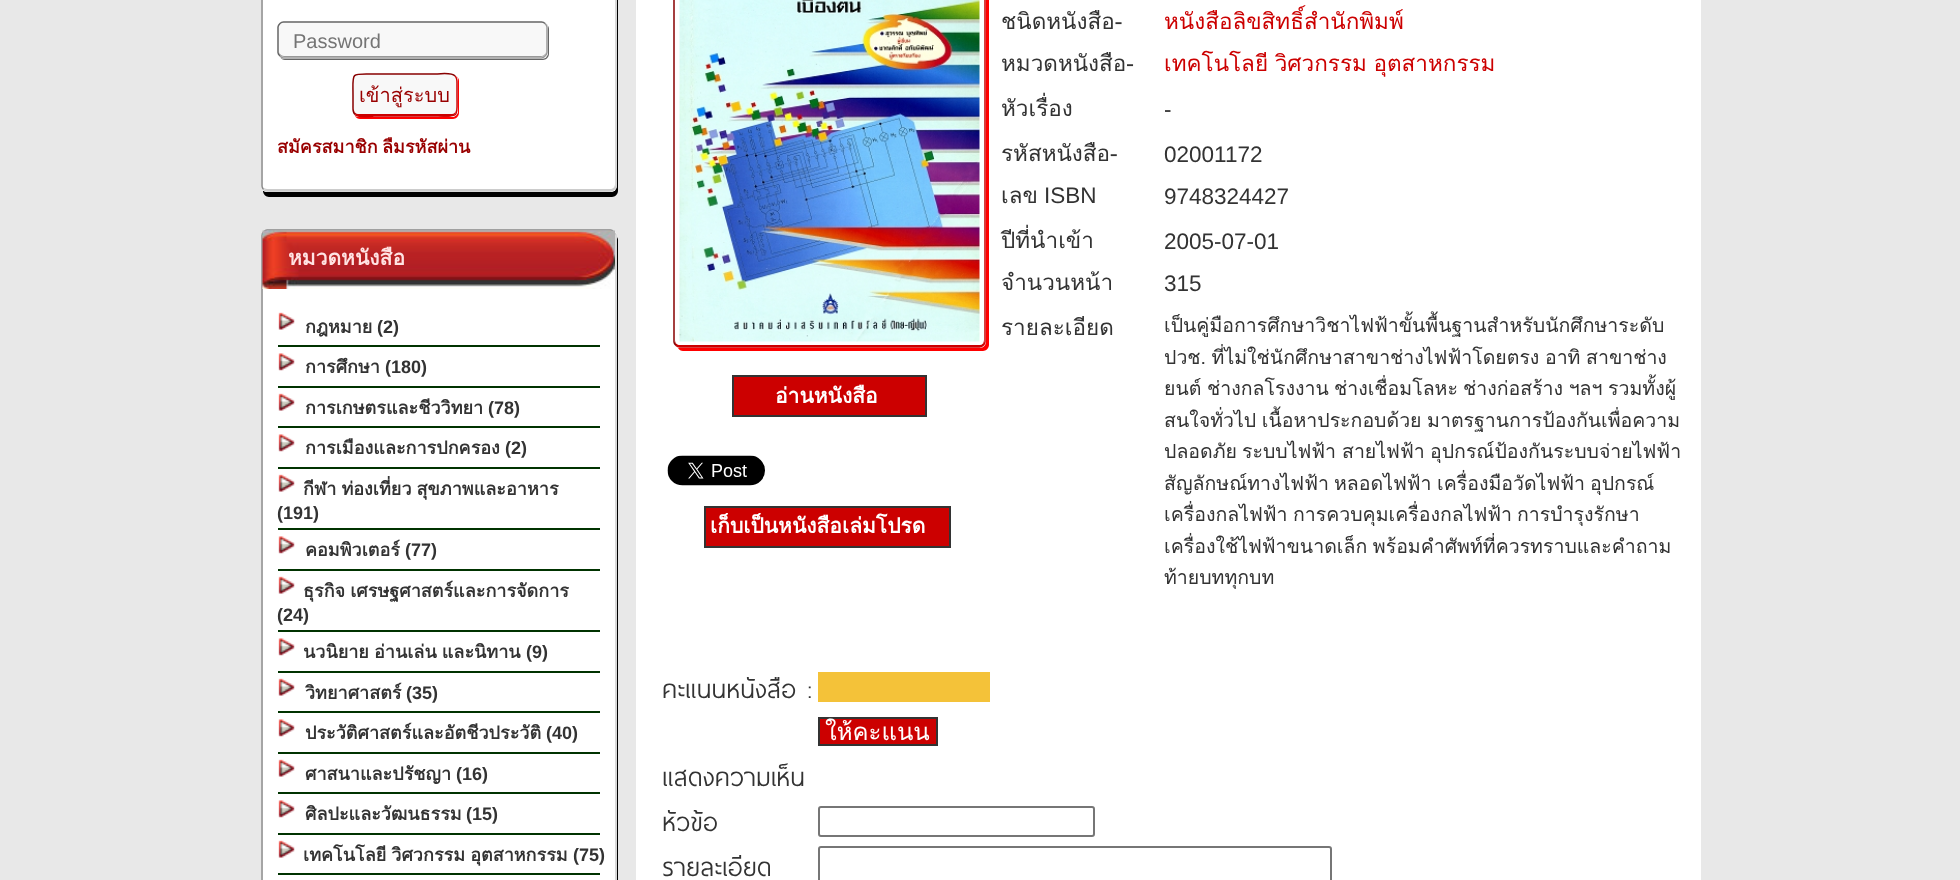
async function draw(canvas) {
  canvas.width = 1960
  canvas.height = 880
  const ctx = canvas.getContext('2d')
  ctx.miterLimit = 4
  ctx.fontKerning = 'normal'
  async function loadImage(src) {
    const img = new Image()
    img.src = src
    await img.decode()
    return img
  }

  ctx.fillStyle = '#e8e8e8'
  ctx.fillRect(0, 0, 1960, 880)
  ctx.fillStyle = '#000'
  ctx.beginPath()
  ctx.moveTo(263, 190)
  ctx.lineTo(263, 191)
  ctx.bezierCurveTo(263, 194, 266, 197, 269, 197)
  ctx.lineTo(612, 197)
  ctx.bezierCurveTo(615, 197, 618, 194, 618, 191)
  ctx.lineTo(618, -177)
  ctx.bezierCurveTo(618, -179, 617, -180, 616, -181)
  ctx.lineTo(616, 186)
  ctx.bezierCurveTo(616, 189, 614, 192, 610, 192)
  ctx.lineTo(267, 192)
  ctx.bezierCurveTo(265, 192, 264, 191, 263, 190)
  ctx.closePath()
  ctx.fill()
  ctx.fillStyle = '#fff'
  ctx.beginPath()
  ctx.roundRect(261, -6, 356, 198, 6)
  ctx.fill()
  ctx.fillStyle = '#ccc'
  ctx.beginPath()
  ctx.moveTo(263, 187)
  ctx.bezierCurveTo(264, 189, 266, 191, 268, 191)
  ctx.lineTo(610, 191)
  ctx.bezierCurveTo(613, 191, 615, 189, 615, 186)
  ctx.lineTo(615, 184)
  ctx.bezierCurveTo(615, 187, 613, 189, 610, 189)
  ctx.lineTo(267, 189)
  ctx.bezierCurveTo(266, 189, 264, 188, 263, 187)
  ctx.closePath()
  ctx.fill()
  ctx.beginPath()
  ctx.moveTo(614, -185)
  ctx.bezierCurveTo(615, -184, 616, -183, 616, -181.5)
  ctx.lineTo(616, 186)
  ctx.bezierCurveTo(616, 187.5, 615, 188.5, 614, 189.5)
  ctx.bezierCurveTo(613, 190.5, 612, 191, 610.5, 191)
  ctx.lineTo(267, 191)
  ctx.bezierCurveTo(265.5, 191, 264.5, 190.5, 263.5, 189.5)
  ctx.strokeStyle = '#ccc'
  ctx.lineWidth = 1.5
  ctx.stroke()
  ctx.beginPath()
  ctx.moveTo(263.5, 189.5)
  ctx.bezierCurveTo(262.5, 188.5, 262, 187.5, 262, 186)
  ctx.lineTo(262, -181.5)
  ctx.bezierCurveTo(262, -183, 262.5, -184, 263.5, -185)
  ctx.bezierCurveTo(264.5, -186, 265.5, -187, 267, -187)
  ctx.lineTo(610.5, -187)
  ctx.bezierCurveTo(612, -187, 613, -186, 614, -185)
  ctx.strokeStyle = '#888'
  ctx.stroke()
  ctx.fillStyle = '#666'
  ctx.beginPath()
  ctx.moveTo(280, 57)
  ctx.bezierCurveTo(281, 59, 283, 60, 285, 60)
  ctx.lineTo(543, 60)
  ctx.bezierCurveTo(546, 60, 549, 57, 549, 54)
  ctx.lineTo(549, 29)
  ctx.bezierCurveTo(549, 27, 548, 26, 547, 24)
  ctx.lineTo(548, 27)
  ctx.lineTo(548, 52)
  ctx.bezierCurveTo(548, 56, 545, 58, 542, 58)
  ctx.lineTo(284, 58)
  ctx.bezierCurveTo(282, 58, 281, 58, 280, 57)
  ctx.closePath()
  ctx.fill()
  ctx.fillStyle = '#f8f8f8'
  ctx.beginPath()
  ctx.roundRect(278, 21, 270, 38, 6)
  ctx.fill()
  ctx.fillStyle = '#999'
  ctx.beginPath()
  ctx.moveTo(279, 51)
  ctx.bezierCurveTo(279, 54, 281, 57, 284, 57)
  ctx.lineTo(541, 57)
  ctx.bezierCurveTo(544, 57, 546, 54, 546, 51)
  ctx.bezierCurveTo(546, 53, 544, 56, 542, 56)
  ctx.lineTo(284, 56)
  ctx.bezierCurveTo(281, 56, 279, 53, 279, 51)
  ctx.closePath()
  ctx.fill()
  ctx.beginPath()
  ctx.moveTo(545, 23.5)
  ctx.bezierCurveTo(546, 24.5, 547, 25.5, 547, 27)
  ctx.lineTo(547, 52.5)
  ctx.bezierCurveTo(547, 54, 546, 55, 545, 56)
  ctx.bezierCurveTo(544, 57, 543, 58, 541.5, 58)
  ctx.lineTo(283.5, 58)
  ctx.bezierCurveTo(282, 58, 281, 57, 280, 56)
  ctx.strokeStyle = '#999'
  ctx.stroke()
  ctx.beginPath()
  ctx.moveTo(280, 56)
  ctx.bezierCurveTo(279, 55, 278, 54, 278, 52.5)
  ctx.lineTo(278, 27)
  ctx.bezierCurveTo(278, 25.5, 279, 24.5, 280, 23.5)
  ctx.bezierCurveTo(281, 22.5, 282, 22, 283.5, 22)
  ctx.lineTo(541.5, 22)
  ctx.bezierCurveTo(543, 22, 544, 22.5, 545, 23.5)
  ctx.strokeStyle = '#666'
  ctx.stroke()
  ctx.font = '20px Liberation Sans'
  ctx.fillStyle = '#757575'
  ctx.fillText('Password', 293, 48)
  ctx.fillStyle = '#f00'
  ctx.beginPath()
  ctx.moveTo(355, 116)
  ctx.bezierCurveTo(356, 118, 358, 119, 360, 119)
  ctx.lineTo(453, 119)
  ctx.bezierCurveTo(456, 119, 459, 116, 459, 113)
  ctx.lineTo(459, 81)
  ctx.bezierCurveTo(459, 79, 458, 77, 456, 76)
  ctx.bezierCurveTo(457, 77, 458, 78, 458, 80)
  ctx.lineTo(458, 111)
  ctx.bezierCurveTo(458, 114, 455, 117, 452, 117)
  ctx.lineTo(358, 117)
  ctx.bezierCurveTo(357, 117, 356, 116, 355, 116)
  ctx.closePath()
  ctx.fill()
  ctx.fillStyle = '#f8f8f8'
  ctx.beginPath()
  ctx.roundRect(353, 74, 105, 43, 6)
  ctx.fill()
  ctx.fillStyle = '#c00'
  ctx.beginPath()
  ctx.moveTo(354, 110)
  ctx.bezierCurveTo(354, 120, 369, 116, 374, 116)
  ctx.lineTo(436, 116)
  ctx.bezierCurveTo(441, 116, 456, 120, 456, 110)
  ctx.bezierCurveTo(456, 112, 454, 114, 452, 114)
  ctx.lineTo(358, 114)
  ctx.bezierCurveTo(356, 114, 354, 112, 354, 110)
  ctx.closePath()
  ctx.fill()
  ctx.beginPath()
  ctx.moveTo(455, 76)
  ctx.bezierCurveTo(457.5, 78, 457, 82, 457, 85)
  ctx.lineTo(457, 95)
  ctx.bezierCurveTo(457, 119, 460, 116, 436, 116)
  ctx.lineTo(374, 116)
  ctx.bezierCurveTo(372.5, 116, 358.5, 118.5, 355, 114.5)
  ctx.strokeStyle = '#c00'
  ctx.stroke()
  ctx.beginPath()
  ctx.moveTo(355, 114.5)
  ctx.bezierCurveTo(352.5, 112.5, 353, 108.5, 353, 106)
  ctx.lineTo(353, 95)
  ctx.bezierCurveTo(353, 71.5, 350, 74, 374, 74)
  ctx.lineTo(436, 74)
  ctx.bezierCurveTo(437.5, 74, 451.5, 72, 455, 76)
  ctx.strokeStyle = '#800'
  ctx.stroke()
  ctx.font = '20px Loma'
  ctx.fillStyle = '#900'
  ctx.fillText('เข้าสู่ระบบ', 359, 102)
  ctx.font = 'bold 18px Loma'
  ctx.fillText('สมัครสมาชิก', 277, 153)
  ctx.fillText('ลืมรหัสผ่าน', 382, 153)
  ctx.fillStyle = '#000'
  ctx.beginPath()
  ctx.moveTo(263, 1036)
  ctx.lineTo(263, 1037)
  ctx.bezierCurveTo(263, 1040, 266, 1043, 269, 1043)
  ctx.lineTo(612, 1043)
  ctx.bezierCurveTo(615, 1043, 618, 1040, 618, 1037)
  ctx.lineTo(618, 240)
  ctx.bezierCurveTo(618, 238, 617, 237, 616, 236)
  ctx.lineTo(616, 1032)
  ctx.bezierCurveTo(616, 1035, 614, 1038, 610, 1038)
  ctx.lineTo(267, 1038)
  ctx.bezierCurveTo(265, 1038, 264, 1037, 263, 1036)
  ctx.closePath()
  ctx.fill()
  ctx.fillStyle = '#fff'
  ctx.beginPath()
  ctx.roundRect(261, 230, 356, 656, 6)
  ctx.fill()
  ctx.beginPath()
  ctx.moveTo(614, 232)
  ctx.bezierCurveTo(615, 233, 616, 234, 616, 235.5)
  ctx.lineTo(616, 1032)
  ctx.bezierCurveTo(616, 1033.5, 615, 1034.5, 614, 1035.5)
  ctx.bezierCurveTo(613, 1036.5, 612, 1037, 610.5, 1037)
  ctx.lineTo(267, 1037)
  ctx.bezierCurveTo(265.5, 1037, 264.5, 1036.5, 263.5, 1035.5)
  ctx.strokeStyle = '#ccc'
  ctx.stroke()
  ctx.beginPath()
  ctx.moveTo(263.5, 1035.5)
  ctx.bezierCurveTo(262.5, 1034.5, 262, 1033.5, 262, 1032)
  ctx.lineTo(262, 235.5)
  ctx.bezierCurveTo(262, 234, 262.5, 233, 263.5, 232)
  ctx.bezierCurveTo(264.5, 231, 265.5, 230, 267, 230)
  ctx.lineTo(610.5, 230)
  ctx.bezierCurveTo(612, 230, 613, 231, 614, 232)
  ctx.strokeStyle = '#888'
  ctx.stroke()
  ctx.drawImage(await loadImage('image0.png'), 262, 230, 353, 59)
  ctx.font = 'bold 21px Loma'
  ctx.fillStyle = '#ffe3e3'
  ctx.fillText('หมวดหนังสือ', 288, 265)
  ctx.fillStyle = '#030'
  ctx.fillRect(278, 345, 322, 2)
  ctx.drawImage(await loadImage('image1.png'), 278, 312, 17, 18)
  ctx.font = 'bold 18px Loma'
  ctx.fillStyle = '#333'
  ctx.fillText('กฎหมาย', 305, 333)
  ctx.font = 'bold 18px Liberation Sans'
  ctx.fillText('(2)', 377, 333)
  ctx.fillStyle = '#030'
  ctx.fillRect(278, 386, 322, 2)
  ctx.drawImage(await loadImage('image2.png'), 278, 353, 17, 18)
  ctx.font = 'bold 18px Loma'
  ctx.fillStyle = '#333'
  ctx.fillText('การศึกษา', 305, 373)
  ctx.font = 'bold 18px Liberation Sans'
  ctx.fillText('(180)', 385, 373)
  ctx.fillStyle = '#030'
  ctx.fillRect(278, 426, 322, 2)
  ctx.drawImage(await loadImage('image1.png'), 278, 393, 17, 18)
  ctx.font = 'bold 18px Loma'
  ctx.fillStyle = '#333'
  ctx.fillText('การเกษตรและชีววิทยา', 305, 414)
  ctx.font = 'bold 18px Liberation Sans'
  ctx.fillText('(78)', 488, 414)
  ctx.fillStyle = '#030'
  ctx.fillRect(278, 467, 322, 2)
  ctx.drawImage(await loadImage('image2.png'), 278, 434, 17, 18)
  ctx.font = 'bold 18px Loma'
  ctx.fillStyle = '#333'
  ctx.fillText('การเมืองและการปกครอง', 305, 454)
  ctx.font = 'bold 18px Liberation Sans'
  ctx.fillText('(2)', 505, 454)
  ctx.fillStyle = '#030'
  ctx.fillRect(278, 528, 322, 2)
  ctx.drawImage(await loadImage('image1.png'), 278, 474, 17, 18)
  ctx.wordSpacing = '-1px'
  ctx.font = 'bold 18px Loma'
  ctx.fillStyle = '#333'
  ctx.fillText('กีฬา ท่องเที่ยว สุขภาพและอาหาร', 303, 495)
  ctx.wordSpacing = '0px'
  ctx.font = 'bold 18px Liberation Sans'
  ctx.fillText('(191)', 277, 519)
  ctx.fillStyle = '#030'
  ctx.fillRect(278, 569, 322, 2)
  ctx.drawImage(await loadImage('image2.png'), 278, 536, 17, 18)
  ctx.font = 'bold 18px Loma'
  ctx.fillStyle = '#333'
  ctx.fillText('คอมพิวเตอร์', 305, 556)
  ctx.font = 'bold 18px Liberation Sans'
  ctx.fillText('(77)', 405, 556)
  ctx.fillStyle = '#030'
  ctx.fillRect(278, 630, 322, 2)
  ctx.drawImage(await loadImage('image1.png'), 278, 576, 17, 18)
  ctx.wordSpacing = '-1px'
  ctx.font = 'bold 18px Loma'
  ctx.fillStyle = '#333'
  ctx.fillText('ธุรกิจ เศรษฐศาสตร์และการจัดการ', 303, 597)
  ctx.wordSpacing = '0px'
  ctx.font = 'bold 18px Liberation Sans'
  ctx.fillText('(24)', 277, 621)
  ctx.fillStyle = '#030'
  ctx.fillRect(278, 671, 322, 2)
  ctx.drawImage(await loadImage('image2.png'), 278, 638, 17, 18)
  ctx.wordSpacing = '-1px'
  ctx.font = 'bold 18px Loma'
  ctx.fillStyle = '#333'
  ctx.fillText('นวนิยาย อ่านเล่น และนิทาน', 303, 658)
  ctx.wordSpacing = '0px'
  ctx.font = 'bold 18px Liberation Sans'
  ctx.fillText('(9)', 526, 658)
  ctx.fillStyle = '#030'
  ctx.fillRect(278, 711, 322, 2)
  ctx.drawImage(await loadImage('image1.png'), 278, 678, 17, 18)
  ctx.font = 'bold 18px Loma'
  ctx.fillStyle = '#333'
  ctx.fillText('วิทยาศาสตร์', 305, 699)
  ctx.font = 'bold 18px Liberation Sans'
  ctx.fillText('(35)', 406, 699)
  ctx.fillStyle = '#030'
  ctx.fillRect(278, 752, 322, 2)
  ctx.drawImage(await loadImage('image2.png'), 278, 719, 17, 18)
  ctx.font = 'bold 18px Loma'
  ctx.fillStyle = '#333'
  ctx.fillText('ประวัติศาสตร์และอัตชีวประวัติ', 305, 739)
  ctx.font = 'bold 18px Liberation Sans'
  ctx.fillText('(40)', 546, 739)
  ctx.fillStyle = '#030'
  ctx.fillRect(278, 792, 322, 2)
  ctx.drawImage(await loadImage('image1.png'), 278, 759, 17, 18)
  ctx.font = 'bold 18px Loma'
  ctx.fillStyle = '#333'
  ctx.fillText('ศาสนาและปรัชญา', 305, 780)
  ctx.font = 'bold 18px Liberation Sans'
  ctx.fillText('(16)', 456, 780)
  ctx.fillStyle = '#030'
  ctx.fillRect(278, 833, 322, 2)
  ctx.drawImage(await loadImage('image2.png'), 278, 800, 17, 18)
  ctx.font = 'bold 18px Loma'
  ctx.fillStyle = '#333'
  ctx.fillText('ศิลปะและวัฒนธรรม', 305, 820)
  ctx.font = 'bold 18px Liberation Sans'
  ctx.fillText('(15)', 466, 820)
  ctx.fillStyle = '#030'
  ctx.fillRect(278, 873, 322, 2)
  ctx.drawImage(await loadImage('image1.png'), 278, 840, 17, 18)
  ctx.wordSpacing = '-1px'
  ctx.font = 'bold 18px Loma'
  ctx.fillStyle = '#333'
  ctx.fillText('เทคโนโลยี วิศวกรรม อุตสาหกรรม', 303, 861)
  ctx.wordSpacing = '0px'
  ctx.font = 'bold 18px Liberation Sans'
  ctx.fillText('(75)', 573, 861)
  ctx.fillStyle = '#fff'
  ctx.fillRect(636, 0, 1065, 880)
  ctx.font = '22.5px Loma'
  ctx.fillStyle = '#333'
  ctx.fillText('ชนิดหนังสือ-', 1001, 29)
  ctx.fillStyle = '#c00'
  ctx.fillText('หนังสือลิขสิทธิ์สำนักพิมพ์', 1164, 29)
  ctx.fillStyle = '#333'
  ctx.fillText('หมวดหนังสือ-', 1001, 71)
  ctx.wordSpacing = '-1px'
  ctx.fillStyle = '#c00'
  ctx.fillText('เทคโนโลยี วิศวกรรม อุตสาหกรรม', 1164, 71)
  ctx.wordSpacing = '0px'
  ctx.fillStyle = '#333'
  ctx.fillText('หัวเรื่อง', 1001, 116)
  ctx.font = '22.5px Liberation Sans'
  ctx.fillText('-', 1164, 117)
  ctx.font = '22.5px Loma'
  ctx.fillText('รหัสหนังสือ-', 1001, 161)
  ctx.font = '22.5px Liberation Sans'
  ctx.fillText('02001172', 1164, 162)
  ctx.font = '22.5px Loma'
  ctx.fillText('เลข', 1001, 203)
  ctx.font = '22.5px Liberation Sans'
  ctx.fillText('ISBN', 1044, 203)
  ctx.fillText('9748324427', 1164, 204)
  ctx.font = '22.5px Loma'
  ctx.fillText('ปีที่นำเข้า', 1001, 248)
  ctx.font = '22.5px Liberation Sans'
  ctx.fillText('2005-07-01', 1164, 249)
  ctx.font = '22.5px Loma'
  ctx.fillText('จำนวนหน้า', 1001, 290)
  ctx.font = '22.5px Liberation Sans'
  ctx.fillText('315', 1164, 291)
  ctx.fillStyle = '#f00'
  ctx.beginPath()
  ctx.moveTo(678, 348)
  ctx.bezierCurveTo(679, 350, 681, 351, 683, 351)
  ctx.lineTo(983, 351)
  ctx.bezierCurveTo(986, 351, 989, 348, 989, 345)
  ctx.lineTo(989, -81)
  ctx.bezierCurveTo(989, -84, 987, -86, 985, -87)
  ctx.lineTo(986, -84)
  ctx.lineTo(986, 342)
  ctx.bezierCurveTo(986, 345, 983, 348, 980, 348)
  ctx.closePath()
  ctx.fill()
  ctx.fillStyle = '#c00'
  ctx.beginPath()
  ctx.moveTo(675, 340)
  ctx.lineTo(675, 342)
  ctx.bezierCurveTo(675, 345, 677, 347, 680, 347)
  ctx.lineTo(979, 347)
  ctx.bezierCurveTo(982, 347, 984, 345, 984, 342)
  ctx.lineTo(984, 340)
  ctx.bezierCurveTo(984, 343, 982, 345, 980, 345)
  ctx.lineTo(680, 345)
  ctx.bezierCurveTo(677, 345, 675, 343, 675, 340)
  ctx.closePath()
  ctx.fill()
  ctx.beginPath()
  ctx.moveTo(983, -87.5)
  ctx.bezierCurveTo(984, -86.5, 985, -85.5, 985, -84)
  ctx.lineTo(985, 342)
  ctx.bezierCurveTo(985, 343.5, 984, 344.5, 983, 345.5)
  ctx.bezierCurveTo(982, 346.5, 981, 347, 979.5, 347)
  ctx.lineTo(679.5, 347)
  ctx.bezierCurveTo(678, 347, 677, 346.5, 676, 345.5)
  ctx.strokeStyle = '#c00'
  ctx.stroke()
  ctx.beginPath()
  ctx.moveTo(676, 345.5)
  ctx.bezierCurveTo(675, 344.5, 674, 343.5, 674, 342)
  ctx.lineTo(674, -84)
  ctx.bezierCurveTo(674, -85.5, 675, -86.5, 676, -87.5)
  ctx.bezierCurveTo(677, -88.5, 678, -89, 679.5, -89)
  ctx.lineTo(979.5, -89)
  ctx.bezierCurveTo(981, -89, 982, -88.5, 983, -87.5)
  ctx.strokeStyle = '#800'
  ctx.stroke()
  ctx.drawImage(await loadImage('image3.png'), 679, 0, 301, 342)
  ctx.beginPath()
  ctx.rect(733, 376, 193, 40)
  ctx.fill()
  ctx.strokeStyle = '#333'
  ctx.lineWidth = 2
  ctx.stroke()
  ctx.font = 'bold 21px Loma'
  ctx.fillStyle = '#fff'
  ctx.fillText('อ่านหนังสือ', 775, 403)
  ctx.font = '22.5px Loma'
  ctx.fillStyle = '#333'
  ctx.fillText('รายละเอียด', 1001, 335)
  ctx.font = '19.5px Loma'
  ctx.fillText('เป็นคู่มือการศึกษาวิชาไฟฟ้าขั้นพื้นฐานสำหรับนักศึกษาระดับ', 1164, 332)
  ctx.wordSpacing = '-1px'
  ctx.fillText('ปวช. ที่ไม่ใช่นักศึกษาสาขาช่างไฟฟ้าโดยตรง อาทิ สาขาช่าง', 1164, 364)
  ctx.wordSpacing = '0px'
  ctx.fillText('ยนต์', 1164, 395)
  ctx.fillText('ช่างกลโรงงาน', 1207, 395)
  ctx.fillText('ช่างเชื่อมโลหะ', 1334, 395)
  ctx.wordSpacing = '-1px'
  ctx.fillText('ช่างก่อสร้าง ฯลฯ รวมทั้งผู้', 1463, 395)
  ctx.fillText('สนใจทั่วไป เนื้อหาประกอบด้วย มาตรฐานการป้องกันเพื่อความ', 1164, 427)
  ctx.wordSpacing = '0px'
  ctx.fillText('ปลอดภัย', 1164, 458)
  ctx.fillText('ระบบไฟฟ้า', 1242, 458)
  ctx.fillText('สายไฟฟ้า', 1342, 458)
  ctx.fillText('อุปกรณ์ป้องกันระบบจ่ายไฟฟ้า', 1430, 458)
  ctx.fillText('สัญลักษณ์ทางไฟฟ้า', 1164, 490)
  ctx.fillText('หลอดไฟฟ้า', 1334, 490)
  ctx.fillText('เครื่องมือวัดไฟฟ้า', 1437, 490)
  ctx.fillText('อุปกรณ์', 1590, 490)
  ctx.fillText('เครื่องกลไฟฟ้า', 1164, 521)
  ctx.fillText('การควบคุมเครื่องกลไฟฟ้า', 1293, 521)
  ctx.fillText('การบำรุงรักษา', 1517, 521)
  ctx.wordSpacing = '-1px'
  ctx.fillText('เครื่องใช้ไฟฟ้าขนาดเล็ก พร้อมคำศัพท์ที่ควรทราบและคำถาม', 1164, 553)
  ctx.wordSpacing = '0px'
  ctx.fillText('ท้ายบททุกบท', 1164, 584)
  ctx.drawImage(await loadImage('image4.png'), 667, 455, 98, 31)
  ctx.fillStyle = '#c00'
  ctx.beginPath()
  ctx.rect(705, 507, 245, 40)
  ctx.fill()
  ctx.stroke()
  ctx.font = 'bold 21px Loma'
  ctx.fillStyle = '#fff'
  ctx.fillText('เก็บเป็นหนังสือเล่มโปรด', 710, 533)
  ctx.font = '33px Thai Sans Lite'
  ctx.fillStyle = '#333'
  ctx.fillText('คะแนนหนังสือ :', 662, 698)
  ctx.fillStyle = '#f4c239'
  ctx.fillRect(818, 672, 172, 30)
  ctx.fillStyle = '#c00'
  ctx.beginPath()
  ctx.rect(819, 718, 118, 27)
  ctx.fill()
  ctx.stroke()
  ctx.font = '24px Loma'
  ctx.fillStyle = '#fff'
  ctx.fillText('ให้คะแนน', 825, 740)
  ctx.font = '33px Thai Sans Lite'
  ctx.fillStyle = '#333'
  ctx.fillText('แสดงความเห็น', 662, 786)
  ctx.fillText('หัวข้อ', 662, 831)
  ctx.beginPath()
  ctx.roundRect(819, 807, 275, 29, 2)
  ctx.strokeStyle = '#767676'
  ctx.stroke()
  ctx.fillText('รายละเอียด', 662, 876)
  ctx.beginPath()
  ctx.roundRect(819, 847, 512, 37, 2)
  ctx.stroke()
}

draw(document.querySelector('canvas'))
